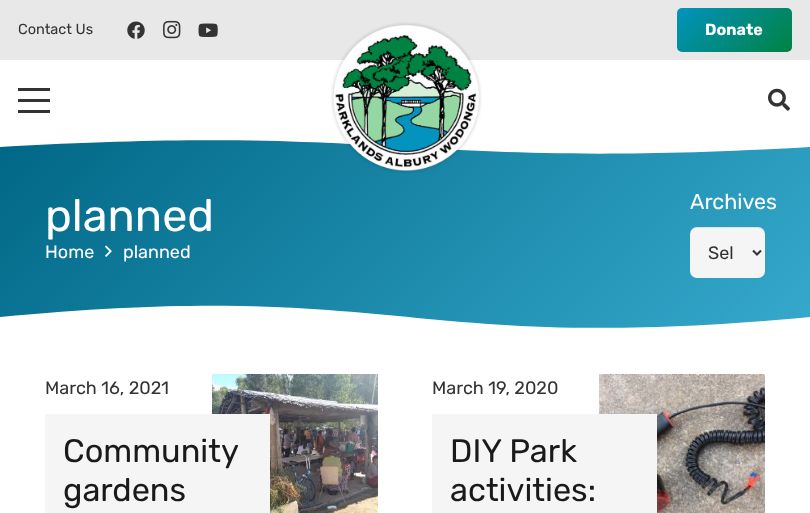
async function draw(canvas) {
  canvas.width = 810
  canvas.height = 513
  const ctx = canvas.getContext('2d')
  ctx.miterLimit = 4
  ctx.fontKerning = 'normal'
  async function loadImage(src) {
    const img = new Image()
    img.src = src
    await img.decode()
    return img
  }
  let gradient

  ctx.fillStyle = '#fff'
  ctx.fillRect(0, 0, 810, 513)
  ctx.fillStyle = '#333'
  ctx.fillRect(18, 99, 32, 3)
  ctx.fillRect(18, 88, 32, 3)
  ctx.fillRect(18, 110, 32, 3)
  ctx.fillStyle = '#e8e8e8'
  ctx.fillRect(0, 0, 810, 60)
  gradient = ctx.createLinearGradient(155, -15, 655, 484)
  gradient.addColorStop(0, '#016786')
  gradient.addColorStop(1, '#35a9cc')
  ctx.fillStyle = gradient
  ctx.fillRect(0, 140, 810, 188)
  ctx.fillStyle = '#fff'
  ctx.beginPath()
  ctx.moveTo(810, 147)
  ctx.bezierCurveTo(405, 170, 405, 124, 0, 147)
  ctx.lineTo(0, 139)
  ctx.lineTo(810, 139)
  ctx.closePath()
  ctx.fill()
  ctx.drawImage(await loadImage('image0.png'), 331, 22, 151, 151)
  ctx.drawImage(await loadImage('image1.png'), 768, 88, 22, 23)
  ctx.font = '14.5px Rubik'
  ctx.fillStyle = '#333'
  ctx.fillText('Contact Us', 18, 34)
  ctx.drawImage(await loadImage('image2.png'), 127, 21, 18, 18)
  ctx.drawImage(await loadImage('image3.png'), 163, 20, 18, 19)
  ctx.drawImage(await loadImage('image4.png'), 198, 23, 20, 14)
  gradient = ctx.createLinearGradient(695, -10, 774, 70)
  gradient.addColorStop(0, '#0293bf')
  gradient.addColorStop(1, '#008242')
  ctx.fillStyle = gradient
  ctx.beginPath()
  ctx.roundRect(677, 8, 115, 44, 5)
  ctx.fill()
  ctx.font = 'bold 16px Rubik'
  ctx.fillStyle = '#fff'
  ctx.fillText('Donate', 705, 35)
  ctx.font = '45px Rubik'
  ctx.fillText('planned', 45, 231)
  ctx.font = '18px Rubik'
  ctx.fillText('Home', 45, 258)
  ctx.drawImage(await loadImage('image5.png'), 105, 245, 7, 12)
  ctx.fillText('planned', 123, 258)
  ctx.font = '21.5px Rubik'
  ctx.fillText('Archives', 690, 209)
  ctx.fillStyle = '#f5f5f5'
  ctx.beginPath()
  ctx.roundRect(690, 227, 75, 51, 7)
  ctx.fill()
  ctx.fillStyle = '#00000014'
  ctx.beginPath()
  ctx.moveTo(697, 228)
  ctx.lineTo(758, 228)
  ctx.bezierCurveTo(762, 228, 765, 231, 765, 235)
  ctx.bezierCurveTo(765, 225, 755, 227, 748, 227)
  ctx.lineTo(707, 227)
  ctx.bezierCurveTo(700, 227, 690, 225, 690, 235)
  ctx.bezierCurveTo(690, 231, 693, 228, 697, 228)
  ctx.closePath()
  ctx.fill()
  ctx.beginPath()
  ctx.moveTo(753, 250.5)
  ctx.lineTo(757, 254.5)
  ctx.lineTo(761, 250.5)
  ctx.strokeStyle = '#333'
  ctx.lineWidth = 2
  ctx.stroke()
  ctx.font = '18px Rubik'
  ctx.fillStyle = '#333'
  ctx.fillText('Sel', 708, 259)
  ctx.fillStyle = '#fff'
  ctx.beginPath()
  ctx.moveTo(0, 317)
  ctx.bezierCurveTo(405, 278, 405, 355, 810, 317)
  ctx.lineTo(810, 330)
  ctx.lineTo(0, 330)
  ctx.closePath()
  ctx.fill()
  ctx.fillStyle = '#333'
  ctx.fillText('March 16, 2021', 45, 394)
  ctx.drawImage(await loadImage('image6.png'), 212, 374, 166, 139)
  ctx.fillStyle = '#f5f5f5'
  ctx.fillRect(45, 414, 225, 99)
  ctx.font = '32.5px Rubik'
  ctx.fillStyle = '#1a1a1a'
  ctx.fillText('Community', 63, 462)
  ctx.fillText('gardens', 63, 501)
  ctx.font = '18px Rubik'
  ctx.fillStyle = '#333'
  ctx.fillText('March 19, 2020', 432, 394)
  ctx.drawImage(await loadImage('image7.png'), 599, 374, 166, 139)
  ctx.fillStyle = '#f5f5f5'
  ctx.fillRect(432, 414, 225, 99)
  ctx.font = '32.5px Rubik'
  ctx.fillStyle = '#1a1a1a'
  ctx.fillText('DIY Park', 450, 462)
  ctx.fillText('activities:', 450, 501)
}

draw(document.querySelector('canvas'))
